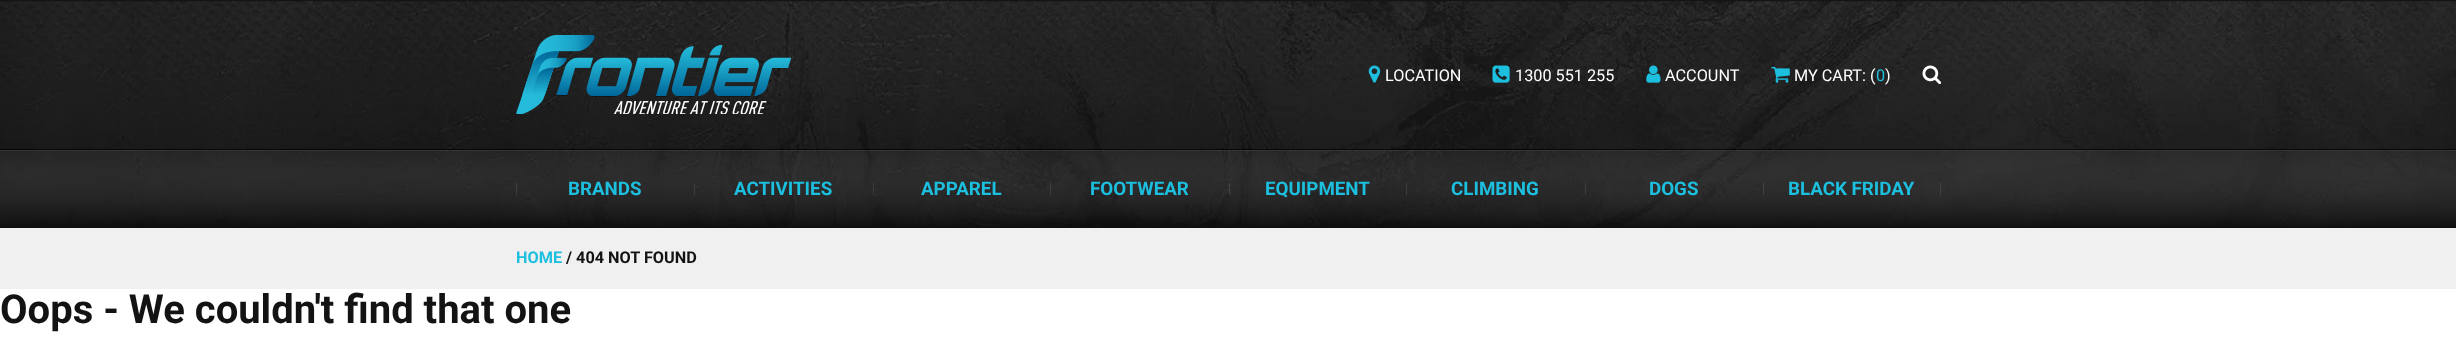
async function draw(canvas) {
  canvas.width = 2456
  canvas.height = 338
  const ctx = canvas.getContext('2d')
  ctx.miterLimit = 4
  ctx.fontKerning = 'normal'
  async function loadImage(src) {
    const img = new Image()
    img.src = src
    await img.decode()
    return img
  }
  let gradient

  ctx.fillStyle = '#fff'
  ctx.fillRect(0, 0, 2456, 338)
  ctx.fillStyle = '#141414'
  ctx.fillRect(0, 0, 2456, 228)
  ctx.drawImage(await loadImage('image0.png'), 0, 1, 2456, 225)
  ctx.fillStyle = '#000000bf'
  ctx.fillRect(0, 149, 2456, 1)
  ctx.drawImage(await loadImage('image1.png'), 516, 35, 275, 79)
  ctx.drawImage(await loadImage('image2.png'), 1368, 65, 13, 18)
  ctx.font = '16.25px Roboto'
  ctx.fillStyle = '#fff'
  ctx.fillText('LOCATION', 1385, 81)
  ctx.drawImage(await loadImage('image3.png'), 1492, 65, 18, 18)
  ctx.fillText('1300 551 255', 1515, 81)
  ctx.drawImage(await loadImage('image4.png'), 1646, 65, 15, 18)
  ctx.fillText('ACCOUNT', 1665, 81)
  ctx.drawImage(await loadImage('image5.png'), 1771, 66, 19, 17)
  ctx.fillText('MY CART: (', 1794, 81)
  ctx.fillStyle = '#1dbfdf'
  ctx.fillText('0', 1876, 81)
  ctx.fillStyle = '#fff'
  ctx.fillText(')', 1885, 81)
  ctx.drawImage(await loadImage('image6.png'), 1922, 65, 20, 20)
  gradient = ctx.createLinearGradient(1228, 151, 1228, 228)
  gradient.addColorStop(0, '#ffffff0d')
  gradient.addColorStop(1, '#0000004d')
  ctx.fillStyle = gradient
  ctx.fillRect(0, 151, 2456, 77)
  ctx.fillStyle = '#ffffff26'
  ctx.fillRect(0, 150, 2456, 1)
  ctx.fillStyle = '#ffffff1a'
  ctx.fillRect(516, 183, 1, 12)
  ctx.font = 'bold 18.75px Roboto'
  ctx.fillStyle = '#1dbfdf'
  ctx.fillText('BRANDS', 568, 195)
  ctx.fillStyle = '#ffffff1a'
  ctx.fillRect(694, 183, 1, 12)
  ctx.fillStyle = '#1dbfdf'
  ctx.fillText('ACTIVITIES', 734, 195)
  ctx.fillStyle = '#ffffff1a'
  ctx.fillRect(873, 183, 1, 12)
  ctx.fillStyle = '#1dbfdf'
  ctx.fillText('APPAREL', 921, 195)
  ctx.fillStyle = '#ffffff1a'
  ctx.fillRect(1050, 183, 1, 12)
  ctx.fillStyle = '#1dbfdf'
  ctx.fillText('FOOTWEAR', 1090, 195)
  ctx.fillStyle = '#ffffff1a'
  ctx.fillRect(1229, 183, 1, 12)
  ctx.fillStyle = '#1dbfdf'
  ctx.fillText('EQUIPMENT', 1265, 195)
  ctx.fillStyle = '#ffffff1a'
  ctx.fillRect(1406, 183, 1, 12)
  ctx.fillStyle = '#1dbfdf'
  ctx.fillText('CLIMBING', 1451, 195)
  ctx.fillStyle = '#ffffff1a'
  ctx.fillRect(1585, 183, 1, 12)
  ctx.fillStyle = '#1dbfdf'
  ctx.fillText('DOGS', 1649, 195)
  ctx.fillStyle = '#ffffff1a'
  ctx.fillRect(1763, 183, 1, 12)
  ctx.fillStyle = '#1dbfdf'
  ctx.fillText('BLACK FRIDAY', 1788, 195)
  ctx.fillStyle = '#ffffff1a'
  ctx.fillRect(1940, 183, 1, 12)
  ctx.fillStyle = '#f0f0f0'
  ctx.fillRect(0, 228, 2456, 61)
  ctx.font = 'bold 16.25px Roboto'
  ctx.fillStyle = '#1dbfdf'
  ctx.fillText('HOME', 516, 263)
  ctx.fillStyle = '#131313'
  ctx.fillText('/ 404 NOT FOUND', 566, 263)
  ctx.font = 'bold 40px Roboto'
  ctx.fillText('Oops - We couldn\'t find that one', 0, 323)
}

draw(document.querySelector('canvas'))
